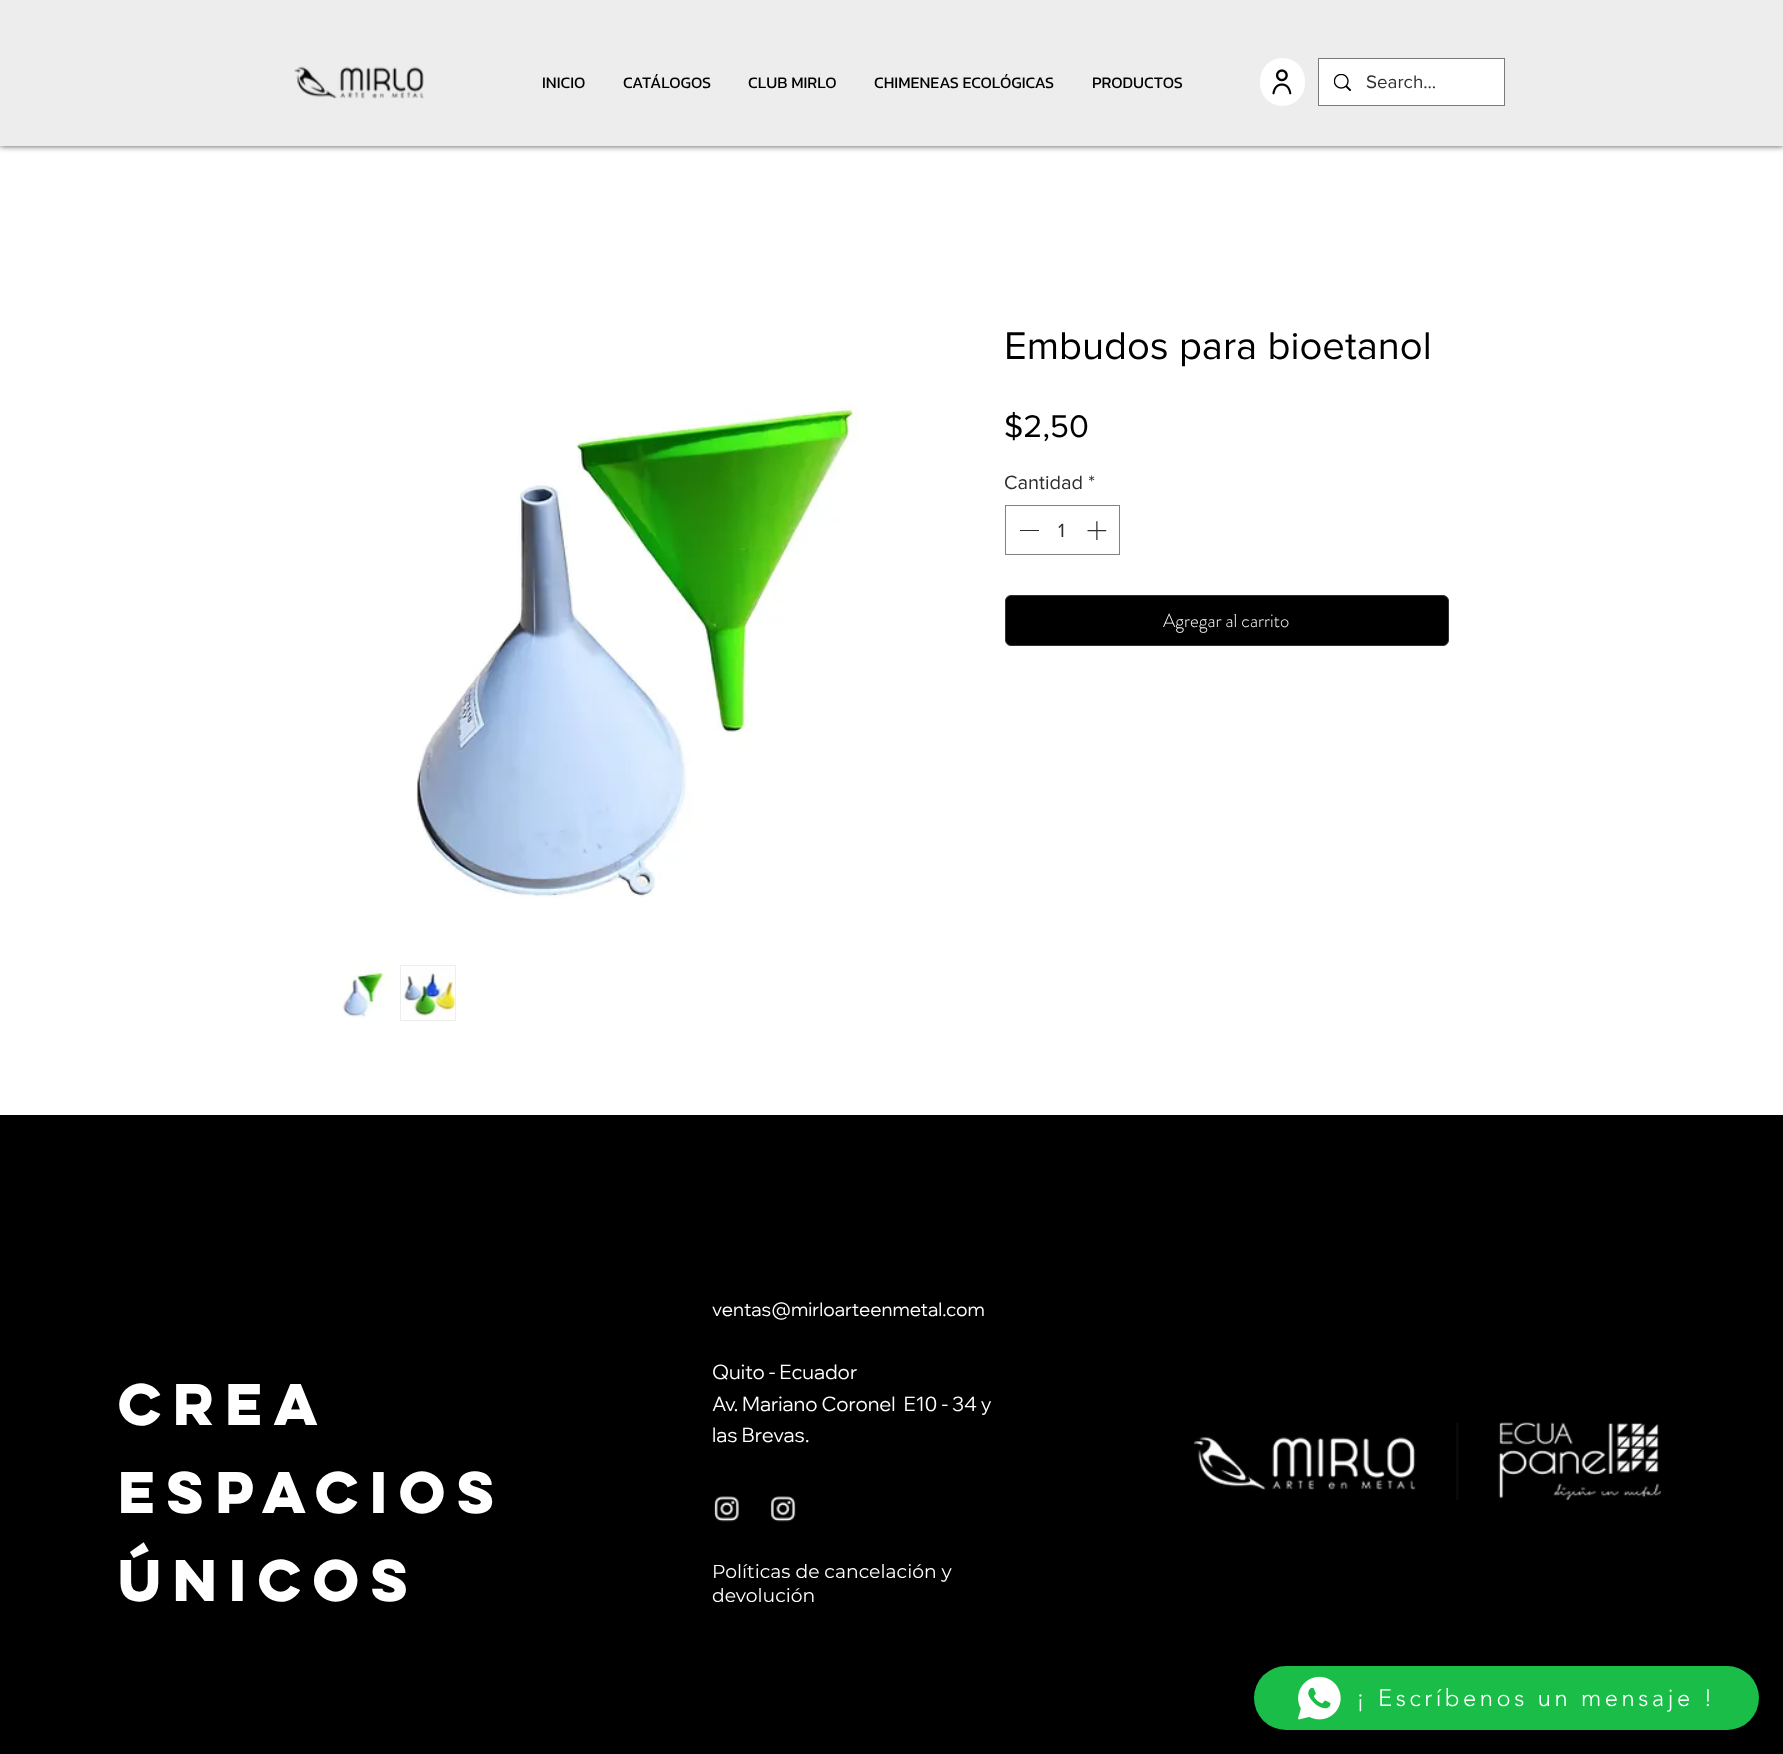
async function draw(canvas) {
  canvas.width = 1783
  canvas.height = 1754
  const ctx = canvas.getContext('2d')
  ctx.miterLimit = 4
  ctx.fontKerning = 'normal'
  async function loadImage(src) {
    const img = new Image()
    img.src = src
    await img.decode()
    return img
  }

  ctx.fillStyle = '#fff'
  ctx.fillRect(0, 0, 1783, 1754)
  ctx.fillStyle = '#000000b3'
  ctx.filter = 'blur(3px)'
  ctx.beginPath()
  ctx.rect(0, 0, 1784, 146)
  ctx.fill()
  ctx.filter = 'none'
  ctx.fillStyle = '#ededee'
  ctx.fillRect(0, 0, 1783, 146)
  ctx.drawImage(await loadImage('image0.png'), 294, 66, 130, 33)
  ctx.font = '16.25px Kanit'
  ctx.fillStyle = '#000'
  ctx.fillText('INICIO', 542, 88)
  ctx.fillText('CATÁLOGOS', 623, 88)
  ctx.fillText('CLUB MIRLO', 748, 88)
  ctx.fillText('CHIMENEAS ECOLÓGICAS', 874, 88)
  ctx.fillText('PRODUCTOS', 1092, 88)
  ctx.fillStyle = '#fff'
  ctx.beginPath()
  ctx.roundRect(1260, 58, 45, 48, 22.5)
  ctx.fill()
  ctx.drawImage(await loadImage('image1.png'), 1272, 69, 20, 26)
  ctx.strokeStyle = '#7b7b7c'
  ctx.strokeRect(1318.5, 58.5, 186, 47)
  ctx.fillRect(1319, 59, 185, 46)
  ctx.drawImage(await loadImage('image2.png'), 1334, 74, 17, 17)
  ctx.font = '18.75px "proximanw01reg"'
  ctx.fillStyle = '#2f2f30'
  ctx.fillText('Search...', 1366, 88)
  ctx.drawImage(await loadImage('image3.png'), 416, 403, 444, 495)
  ctx.drawImage(await loadImage('image4.png'), 337, 966, 52, 52)
  ctx.strokeStyle = '#ededee'
  ctx.strokeRect(400.5, 965.5, 55, 55)
  ctx.drawImage(await loadImage('image5.png'), 401, 966, 55, 51)
  ctx.font = '40px "proximanw01reg"'
  ctx.fillStyle = '#000'
  ctx.fillText('Embudos para bioetanol', 1004, 359)
  ctx.font = '32.5px "proximanw01reg"'
  ctx.fillText('$2,50', 1004, 437)
  ctx.font = '20px "proximanw01reg"'
  ctx.fillStyle = '#2f2f30'
  ctx.fillText('Cantidad *', 1004, 489)
  ctx.strokeStyle = '#828283'
  ctx.strokeRect(1005.5, 505.5, 114, 49)
  ctx.fillRect(1020, 530, 19, 1)
  ctx.fillText('1', 1058, 537)
  ctx.drawImage(await loadImage('image6.png'), 1087, 521, 20, 19)
  ctx.fillStyle = '#000'
  ctx.beginPath()
  ctx.roundRect(1005.5, 595.5, 443, 50, 5.5)
  ctx.fill()
  ctx.strokeStyle = '#2f2f30'
  ctx.stroke()
  ctx.font = '300 18.75px "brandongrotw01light"'
  ctx.fillStyle = '#fff'
  ctx.fillText('Agregar al carrito', 1163, 627)
  ctx.fillStyle = '#000'
  ctx.fillRect(0, 1115, 1783, 639)
  ctx.font = 'bold 52.5px "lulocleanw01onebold"'
  ctx.fillStyle = '#fff'
  ctx.fillText('Crea', 118, 1425)
  ctx.fillText('Espacios', 118, 1513)
  ctx.fillText('únicos', 118, 1601)
  ctx.font = '18.75px Wix Madefor Display'
  ctx.fillText('ventas@mirloarteenmetal.com', 712, 1316)
  ctx.font = '20px Wix Madefor Display'
  ctx.fillText('Quito - Ecuador', 712, 1379)
  ctx.fillText('Av. Mariano Coronel  E10 - 34 y', 712, 1411)
  ctx.fillText('las Brevas.', 712, 1442)
  ctx.drawImage(await loadImage('image7.png'), 714, 1496, 25, 26)
  ctx.drawImage(await loadImage('image8.png'), 770, 1496, 26, 26)
  ctx.font = '18.75px Montserrat'
  ctx.fillText('Políticas de cancelación y', 712, 1578)
  ctx.fillText('devolución', 712, 1602)
  ctx.drawImage(await loadImage('image9.png'), 1194, 1422, 467, 78)
  ctx.fillStyle = '#1bbd49'
  ctx.beginPath()
  ctx.roundRect(1254, 1666, 505, 64, 32)
  ctx.fill()
  ctx.drawImage(await loadImage('image10.png'), 1298, 1676, 43, 44)
  ctx.letterSpacing = '3.55px'
  ctx.font = '300 23.75px "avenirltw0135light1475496"'
  ctx.fillStyle = '#fff'
  ctx.fillText('¡ Escríbenos un mensaje !', 1356, 1706)
}

draw(document.querySelector('canvas'))
